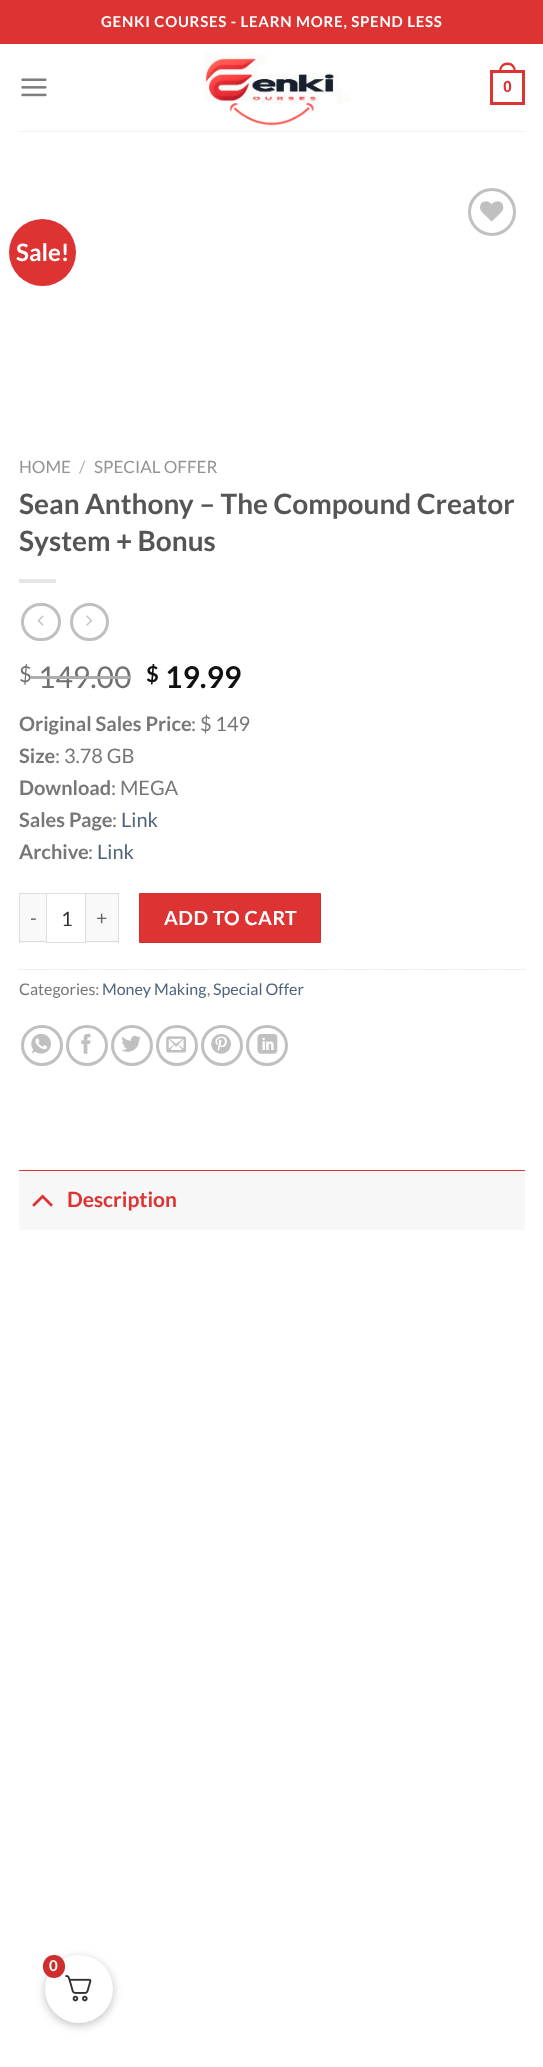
async function draw(canvas) {
  canvas.width = 543
  canvas.height = 2067
  const ctx = canvas.getContext('2d')
  ctx.miterLimit = 4
  ctx.fontKerning = 'normal'
  async function loadImage(src) {
    const img = new Image()
    img.src = src
    await img.decode()
    return img
  }

  ctx.fillStyle = '#fff'
  ctx.fillRect(0, 0, 543, 2067)
  ctx.fillStyle = '#d33'
  ctx.fillRect(0, 0, 543, 44)
  ctx.letterSpacing = '0.75px'
  ctx.font = 'bold 15px Lato'
  ctx.fillStyle = '#fff'
  ctx.fillText('GENKI COURSES - LEARN MORE, SPEND LESS', 101, 27)
  ctx.drawImage(await loadImage('image0.png'), 21, 78, 26, 19)
  ctx.drawImage(await loadImage('image1.png'), 204, 54, 146, 72)
  ctx.strokeStyle = '#d33'
  ctx.lineWidth = 3
  ctx.strokeRect(491.5, 71.5, 32, 32)
  ctx.fillStyle = '#d33'
  ctx.beginPath()
  ctx.moveTo(507.5, 62.5)
  ctx.bezierCurveTo(513.5, 62.5, 516, 67, 516, 72.5)
  ctx.lineTo(499, 72.5)
  ctx.bezierCurveTo(499, 67, 501.5, 62.5, 507.5, 62.5)
  ctx.closePath()
  ctx.moveTo(507.5, 65)
  ctx.bezierCurveTo(512, 65, 514, 68.5, 514, 72.5)
  ctx.lineTo(501, 72.5)
  ctx.bezierCurveTo(501, 68.5, 503, 65, 507.5, 65)
  ctx.closePath()
  ctx.fill('evenodd')
  ctx.letterSpacing = '0px'
  ctx.font = 'bold 16px Liberation Sans'
  ctx.fillText('0', 503, 92)
  ctx.fillStyle = '#f1f1f1'
  ctx.fillRect(19, 131, 506, 1)
  ctx.beginPath()
  ctx.arc(492, 212, 22.5, 0, 2 * Math.PI)
  ctx.strokeStyle = '#c0c0c0'
  ctx.stroke()
  ctx.drawImage(await loadImage('image2.png'), 480, 201, 24, 21)
  ctx.fillStyle = '#d33'
  ctx.beginPath()
  ctx.arc(42.5, 252.5, 33.5, 0, 2 * Math.PI)
  ctx.fill()
  ctx.font = 'bold 24px Lato'
  ctx.fillStyle = '#fff'
  ctx.fillText('Sale!', 16, 261)
  ctx.font = '17px Lato'
  ctx.fillStyle = '#949494'
  ctx.fillText('HOME', 19, 473)
  ctx.fillStyle = '#b2b2b2'
  ctx.fillText('/', 79, 473)
  ctx.fillStyle = '#949494'
  ctx.fillText('SPECIAL OFFER', 94, 473)
  ctx.font = 'bold 28px Lato'
  ctx.fillStyle = '#555'
  ctx.fillText('Sean Anthony – The Compound Creator', 19, 514)
  ctx.fillText('System + Bonus', 19, 551)
  ctx.fillStyle = '#e6e6e6'
  ctx.fillRect(19, 579, 37, 4)
  ctx.beginPath()
  ctx.roundRect(22.5, 604.5, 37, 35, 17.5)
  ctx.stroke()
  ctx.drawImage(await loadImage('image3.png'), 37, 615, 7, 11)
  ctx.beginPath()
  ctx.roundRect(71.5, 604.5, 36, 35, 17.5)
  ctx.stroke()
  ctx.drawImage(await loadImage('image4.png'), 86, 615, 7, 11)
  ctx.font = '22px Lato'
  ctx.fillStyle = '#707070'
  ctx.fillText('$', 19, 682)
  ctx.font = '30px Lato'
  ctx.fillText('149.00', 38, 688)
  ctx.fillStyle = '#adadad'
  ctx.fillRect(31, 676, 100, 3)
  ctx.font = 'bold 22px Lato'
  ctx.fillStyle = '#111'
  ctx.fillText('$', 146, 682)
  ctx.font = 'bold 30px Lato'
  ctx.fillText('19.99', 165, 688)
  ctx.font = 'bold 20px Lato'
  ctx.fillStyle = '#777'
  ctx.fillText('Original Sales Price', 19, 731)
  ctx.font = '20px Lato'
  ctx.fillText(': $ 149', 191, 731)
  ctx.font = 'bold 20px Lato'
  ctx.fillText('Size', 19, 763)
  ctx.font = '20px Lato'
  ctx.fillText(': 3.78 GB', 55, 763)
  ctx.font = 'bold 20px Lato'
  ctx.fillText('Download', 19, 795)
  ctx.font = '20px Lato'
  ctx.fillText(': MEGA', 111, 795)
  ctx.font = 'bold 20px Lato'
  ctx.fillText('Sales Page', 19, 827)
  ctx.font = '20px Lato'
  ctx.fillText(':', 112, 827)
  ctx.fillStyle = '#4e657b'
  ctx.fillText('Link', 121, 827)
  ctx.font = 'bold 20px Lato'
  ctx.fillStyle = '#777'
  ctx.fillText('Archive', 19, 859)
  ctx.font = '20px Lato'
  ctx.fillText(':', 88, 859)
  ctx.fillStyle = '#4e657b'
  ctx.fillText('Link', 97, 859)
  ctx.fillStyle = '#f9f9f9'
  ctx.fillRect(20, 894, 26, 49)
  ctx.fillStyle = '#ddd'
  ctx.fillRect(19, 893, 27, 1)
  ctx.fillRect(19, 941, 27, 1)
  ctx.fillRect(19, 893, 1, 50)
  ctx.letterSpacing = '0.5px'
  ctx.font = '19.5px Lato'
  ctx.fillStyle = '#666'
  ctx.fillText('-', 30, 925)
  ctx.strokeStyle = '#ddd'
  ctx.lineWidth = 1
  ctx.strokeRect(46.5, 893.5, 39, 49)
  ctx.letterSpacing = '0px'
  ctx.font = '20px Lato'
  ctx.fillStyle = '#333'
  ctx.fillText('1', 61, 926)
  ctx.fillStyle = '#f9f9f9'
  ctx.fillRect(86, 894, 32, 49)
  ctx.fillStyle = '#ddd'
  ctx.fillRect(86, 893, 33, 1)
  ctx.fillRect(118, 893, 1, 50)
  ctx.fillRect(86, 941, 33, 1)
  ctx.letterSpacing = '0.5px'
  ctx.font = '19.5px Lato'
  ctx.fillStyle = '#666'
  ctx.fillText('+', 96, 925)
  ctx.fillStyle = '#d33'
  ctx.beginPath()
  ctx.rect(139.5, 893.5, 181, 49)
  ctx.fill()
  ctx.strokeStyle = '#d23030'
  ctx.stroke()
  ctx.font = 'bold 19.5px Lato'
  ctx.fillStyle = '#fff'
  ctx.fillText('ADD TO CART', 164, 925)
  ctx.beginPath()
  ctx.moveTo(19, 969.5)
  ctx.lineTo(525, 969.5)
  ctx.strokeStyle = '#ddd'
  ctx.lineWidth = 1.2
  ctx.setLineDash([1.25, 1.25])
  ctx.stroke()
  ctx.letterSpacing = '0px'
  ctx.font = '16px Lato'
  ctx.fillStyle = '#777'
  ctx.fillText('Categories:', 19, 995)
  ctx.fillStyle = '#4e657b'
  ctx.fillText('Money Making', 102, 995)
  ctx.fillStyle = '#777'
  ctx.fillText(',', 207, 995)
  ctx.fillStyle = '#4e657b'
  ctx.fillText('Special Offer', 213, 995)
  ctx.beginPath()
  ctx.roundRect(22.5, 1026.5, 39, 38, 19)
  ctx.strokeStyle = '#c0c0c0'
  ctx.lineWidth = 3
  ctx.setLineDash([])
  ctx.stroke()
  ctx.drawImage(await loadImage('image5.png'), 31, 1033, 20, 21)
  ctx.beginPath()
  ctx.roundRect(67.5, 1026.5, 39, 38, 19)
  ctx.stroke()
  ctx.drawImage(await loadImage('image6.png'), 81, 1033, 10, 21)
  ctx.beginPath()
  ctx.roundRect(112.5, 1026.5, 39, 38, 19)
  ctx.stroke()
  ctx.drawImage(await loadImage('image7.png'), 121, 1035, 20, 17)
  ctx.beginPath()
  ctx.roundRect(157.5, 1026.5, 39, 38, 19)
  ctx.stroke()
  ctx.drawImage(await loadImage('image8.png'), 166, 1036, 20, 17)
  ctx.beginPath()
  ctx.roundRect(202.5, 1026.5, 39, 38, 19)
  ctx.stroke()
  ctx.drawImage(await loadImage('image9.png'), 211, 1034, 20, 20)
  ctx.beginPath()
  ctx.roundRect(247.5, 1026.5, 39, 38, 19)
  ctx.stroke()
  ctx.drawImage(await loadImage('image10.png'), 257, 1033, 21, 21)
  ctx.fillStyle = '#f7f7f7'
  ctx.fillRect(19, 1171, 506, 59)
  ctx.fillStyle = '#d33'
  ctx.fillRect(19, 1170, 506, 1)
  ctx.drawImage(await loadImage('image11.png'), 32, 1194, 21, 13)
  ctx.font = 'bold 21px Lato'
  ctx.fillText('Description', 67, 1207)
  ctx.fillStyle = '#00000040'
  ctx.filter = 'blur(5px)'
  ctx.beginPath()
  ctx.roundRect(45, 1958, 68, 67, 33.5)
  ctx.fill()
  ctx.filter = 'none'
  ctx.fillStyle = '#fff'
  ctx.beginPath()
  ctx.arc(79, 1989, 34, 0, 2 * Math.PI)
  ctx.fill()
  ctx.drawImage(await loadImage('image12.png'), 65, 1975, 27, 27)
  ctx.fillStyle = '#cf2e2e'
  ctx.beginPath()
  ctx.roundRect(43, 1955, 22, 23, 11)
  ctx.fill()
  ctx.font = 'bold 15px Lato'
  ctx.fillStyle = '#fff'
  ctx.fillText('0', 49, 1971)
}

draw(document.querySelector('canvas'))
